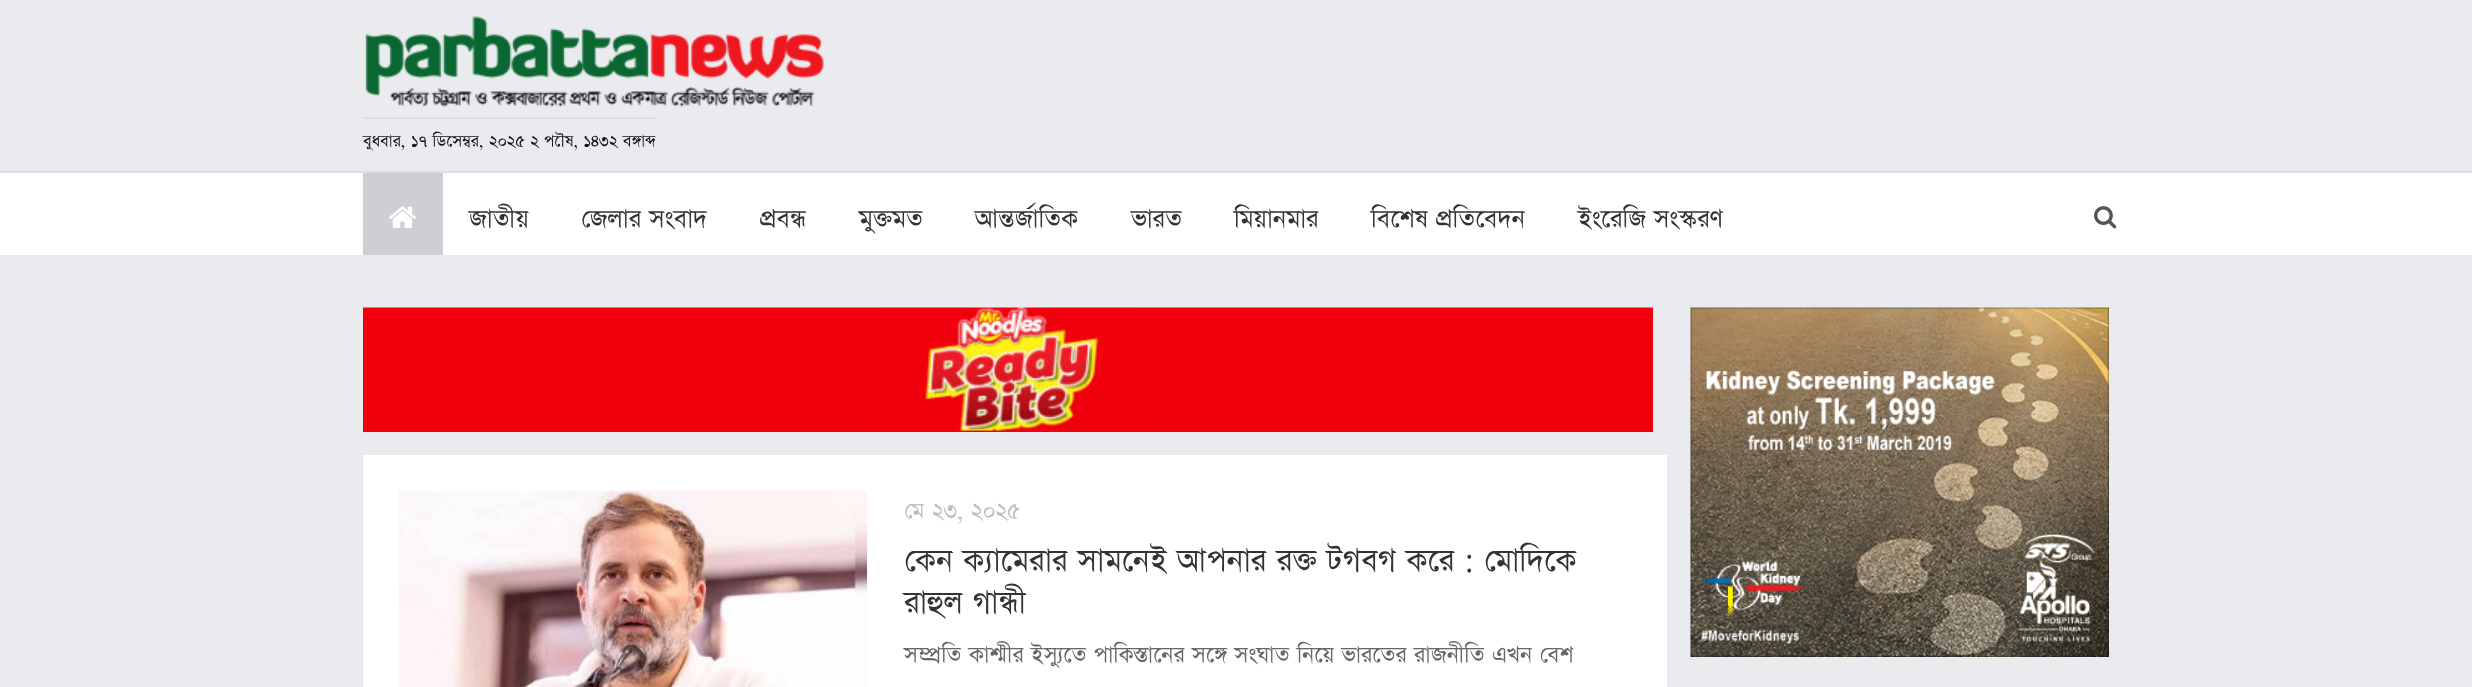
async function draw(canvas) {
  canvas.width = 2472
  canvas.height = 687
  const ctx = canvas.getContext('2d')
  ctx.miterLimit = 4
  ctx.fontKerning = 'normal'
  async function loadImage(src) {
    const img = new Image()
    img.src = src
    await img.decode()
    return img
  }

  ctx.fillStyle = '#eaebef'
  ctx.fillRect(0, 0, 2472, 687)
  ctx.drawImage(await loadImage('image0.png'), 365, 16, 459, 91)
  ctx.fillStyle = '#ddd'
  ctx.fillRect(363, 117, 293, 2)
  ctx.font = '19.5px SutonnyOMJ'
  ctx.fillStyle = '#111'
  ctx.fillText('বুধবার, ১৭ ডিসেম্বর, ২০২৫ ২ পৌষ, ১৪৩২ বঙ্গাব্দ', 363, 147)
  ctx.fillStyle = '#fff'
  ctx.fillRect(0, 173, 2472, 82)
  ctx.fillStyle = '#ddd'
  ctx.fillRect(0, 171, 2472, 2)
  ctx.fillStyle = '#cfced3'
  ctx.fillRect(363, 173, 80, 82)
  ctx.drawImage(await loadImage('image1.png'), 389, 206, 27, 22)
  ctx.font = '30px SutonnyOMJ'
  ctx.fillStyle = '#333'
  ctx.fillText('জাতীয়', 469, 228)
  ctx.fillText('জেলার সংবাদ', 581, 228)
  ctx.fillText('প্রবন্ধ', 760, 228)
  ctx.fillText('মুক্তমত', 859, 228)
  ctx.fillText('আন্তর্জাতিক', 975, 228)
  ctx.fillText('ভারত', 1131, 228)
  ctx.fillText('মিয়ানমার', 1234, 228)
  ctx.fillText('বিশেষ প্রতিবেদন', 1371, 228)
  ctx.fillText('ইংরেজি সংস্করণ', 1578, 228)
  ctx.drawImage(await loadImage('image2.png'), 2094, 206, 23, 23)
  ctx.drawImage(await loadImage('image3.png'), 363, 307, 1290, 125)
  ctx.fillStyle = '#fff'
  ctx.fillRect(363, 455, 1304, 232)
  ctx.drawImage(await loadImage('image4.png'), 399, 490, 468, 197)
  ctx.font = '27px SutonnyOMJ'
  ctx.fillStyle = '#bcbec0'
  ctx.fillText('মে ২৩, ২০২৫', 904, 519)
  ctx.font = '37.5px SutonnyOMJ'
  ctx.fillStyle = '#333'
  ctx.fillText('কেন ক্যামেরার সামনেই আপনার রক্ত টগবগ করে : মোদিকে', 904, 572)
  ctx.fillText('রাহুল গান্ধী', 904, 614)
  ctx.font = '27px SutonnyOMJ'
  ctx.fillStyle = '#666'
  ctx.fillText('সম্প্রতি কাশ্মীর ইস্যুতে পাকিস্তানের সঙ্গে সংঘাত নিয়ে ভারতের রাজনীতি এখন বেশ', 904, 663)
  ctx.drawImage(await loadImage('image5.png'), 1690, 307, 419, 350)
}

draw(document.querySelector('canvas'))
